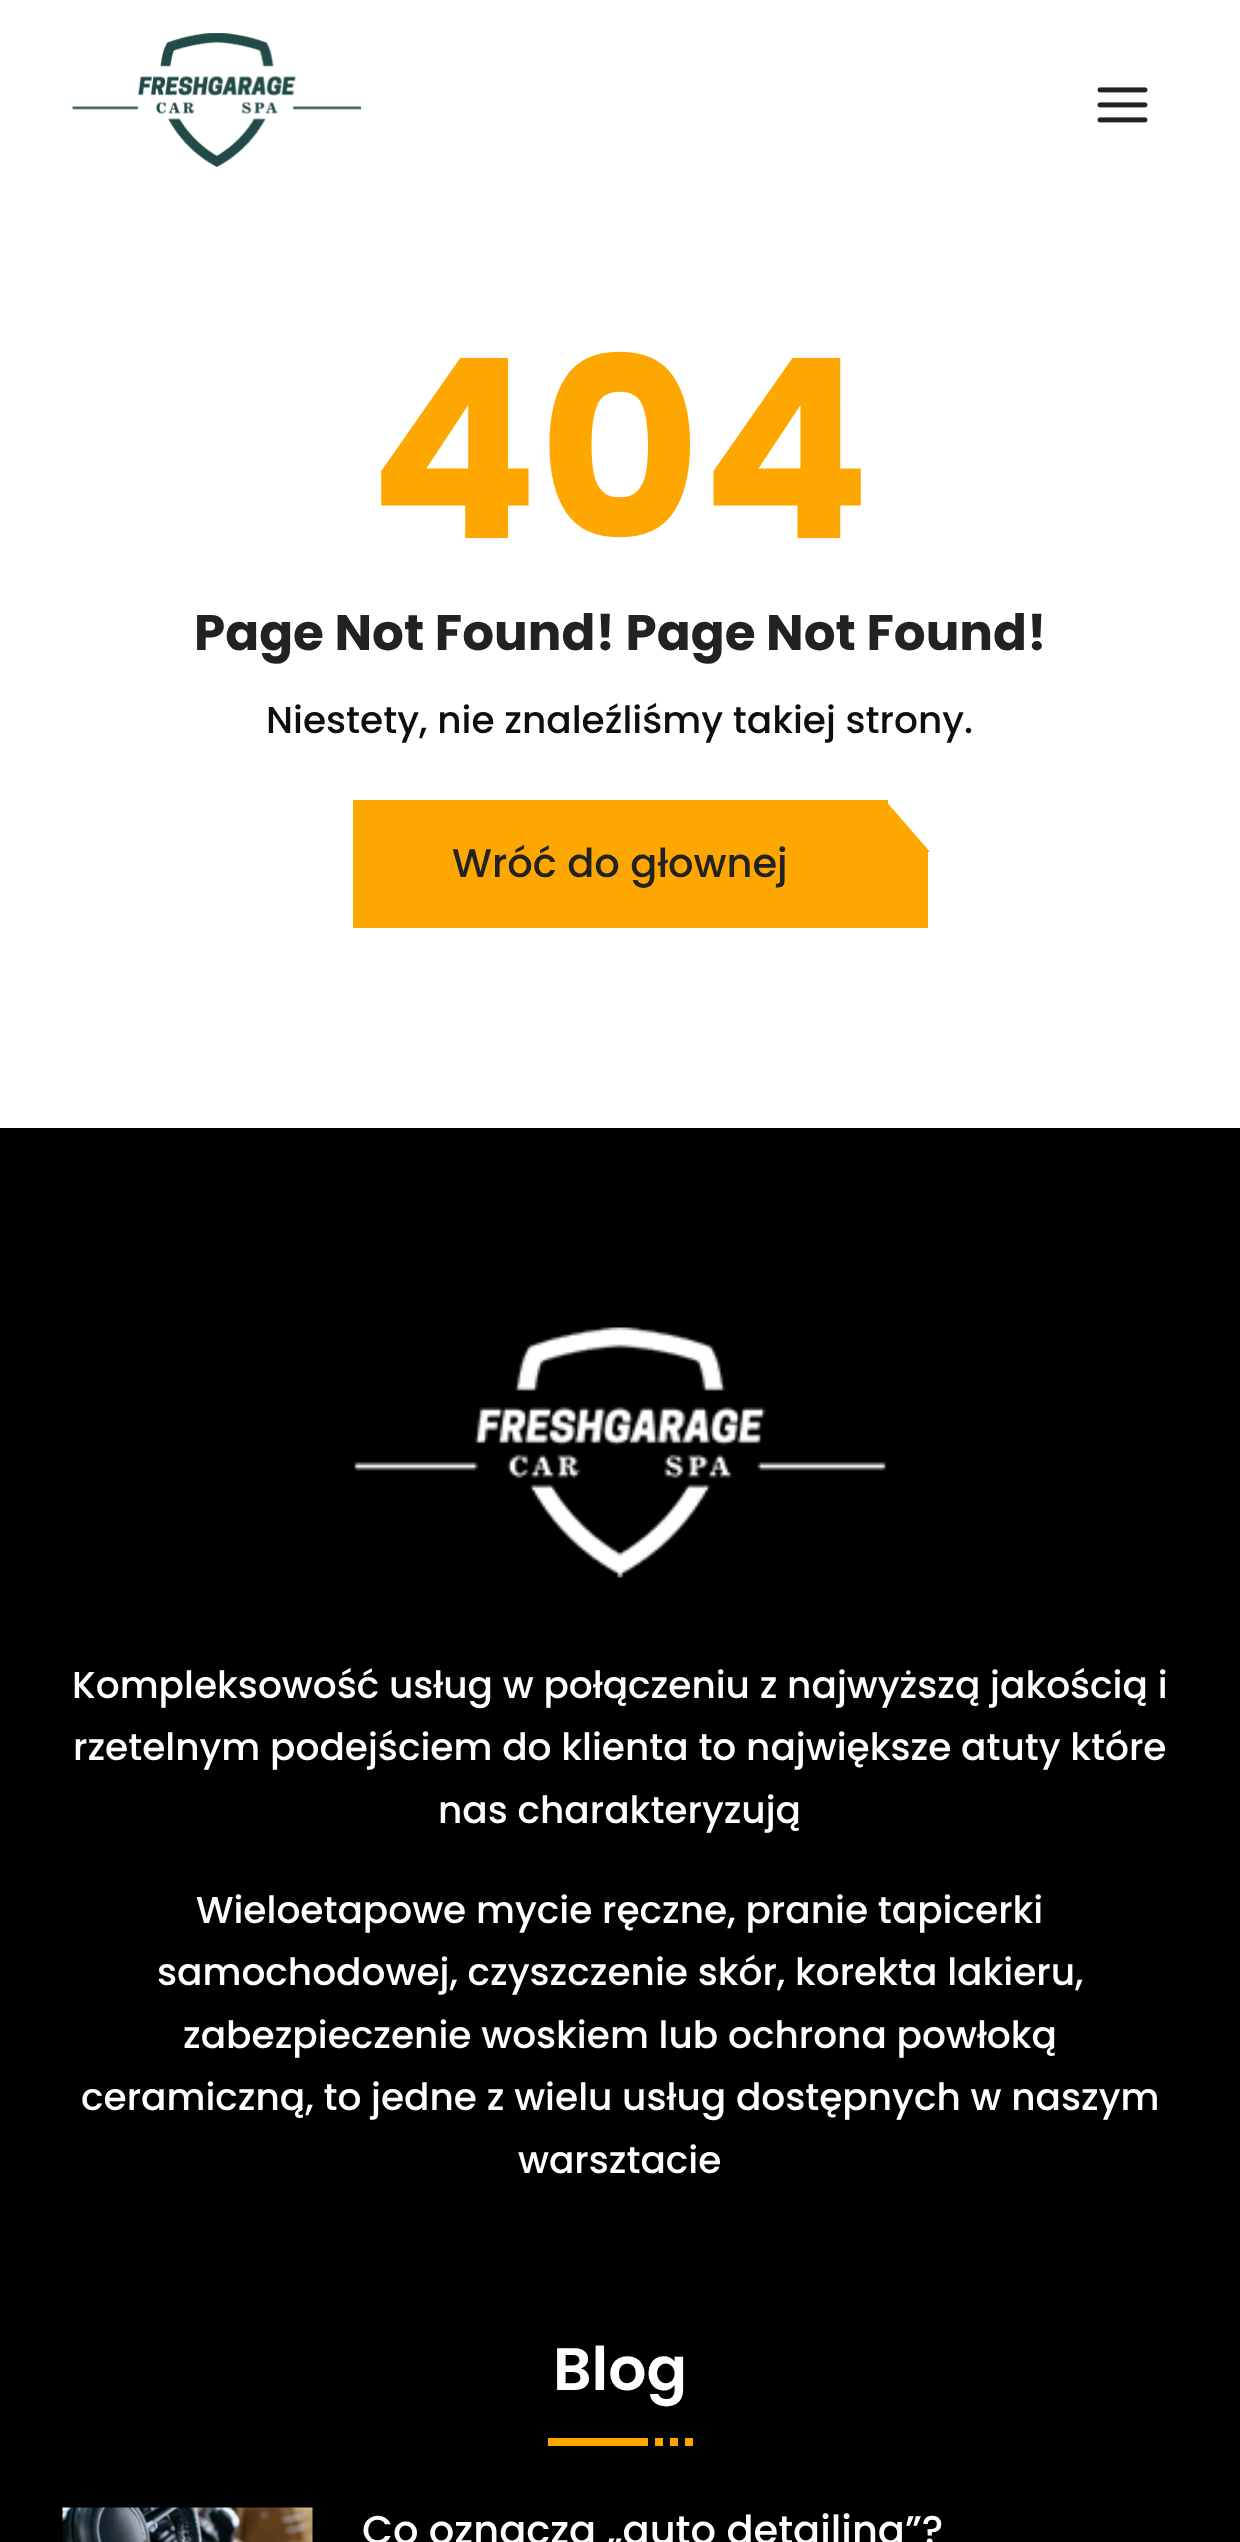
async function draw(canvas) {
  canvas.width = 1240
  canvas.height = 2542
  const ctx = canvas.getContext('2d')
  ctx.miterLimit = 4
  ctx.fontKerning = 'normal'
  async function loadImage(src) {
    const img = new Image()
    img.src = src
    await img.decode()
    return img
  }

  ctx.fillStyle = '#fff'
  ctx.fillRect(0, 0, 1240, 2542)
  ctx.drawImage(await loadImage('image0.png'), 72, 33, 289, 134)
  ctx.drawImage(await loadImage('image1.png'), 1097, 87, 51, 36)
  ctx.font = 'bold 250px Poppins'
  ctx.fillStyle = '#fda700'
  ctx.fillText('404', 369, 538)
  ctx.font = 'bold 50px Poppins'
  ctx.fillStyle = '#222'
  ctx.fillText('Page Not Found! Page Not Found!', 194, 650)
  ctx.font = '500 37.5px Poppins'
  ctx.fillStyle = '#0e0e0e'
  ctx.fillText('Niestety, nie znaleźliśmy takiej strony.', 266, 733)
  ctx.fillStyle = '#fda700'
  ctx.fillRect(353, 800, 535, 128)
  ctx.beginPath()
  ctx.moveTo(930, 852)
  ctx.lineTo(885, 852)
  ctx.lineTo(885, 800)
  ctx.closePath()
  ctx.fill()
  ctx.font = '500 40px Poppins'
  ctx.fillStyle = '#222'
  ctx.fillText('Wróć do głownej', 452, 877)
  ctx.fillStyle = '#fda700'
  ctx.fillRect(888, 852, 40, 76)
  ctx.fillStyle = '#000'
  ctx.fillRect(0, 1128, 1240, 1414)
  ctx.drawImage(await loadImage('image2.png'), 354, 1327, 532, 251)
  ctx.font = '500 37.5px Poppins'
  ctx.fillStyle = '#fff'
  ctx.fillText('Kompleksowość usług w połączeniu z najwyższą jakością i', 72, 1698)
  ctx.fillText('rzetelnym podejściem do klienta to największe atuty które', 73, 1760)
  ctx.fillText('nas charakteryzują', 438, 1823)
  ctx.fillText('Wieloetapowe mycie ręczne, pranie tapicerki', 196, 1923)
  ctx.fillText('samochodowej, czyszczenie skór, korekta lakieru,', 157, 1985)
  ctx.fillText('zabezpieczenie woskiem lub ochrona powłoką', 183, 2048)
  ctx.fillText('ceramiczną, to jedne z wielu usług dostępnych w naszym', 81, 2110)
  ctx.fillText('warsztacie', 518, 2173)
  ctx.font = '600 60px Poppins'
  ctx.fillText('Blog', 553, 2390)
  ctx.fillStyle = '#fda700'
  ctx.fillRect(548, 2438, 100, 8)
  ctx.fillRect(655, 2438, 8, 8)
  ctx.fillRect(670, 2438, 8, 8)
  ctx.fillRect(685, 2438, 8, 8)
  ctx.drawImage(await loadImage('image3.png'), 62, 2507, 251, 35)
  ctx.font = '500 40px Poppins'
  ctx.fillStyle = '#fff'
  ctx.fillText('Co oznacza „auto detailing”?', 362, 2544)
}

draw(document.querySelector('canvas'))
